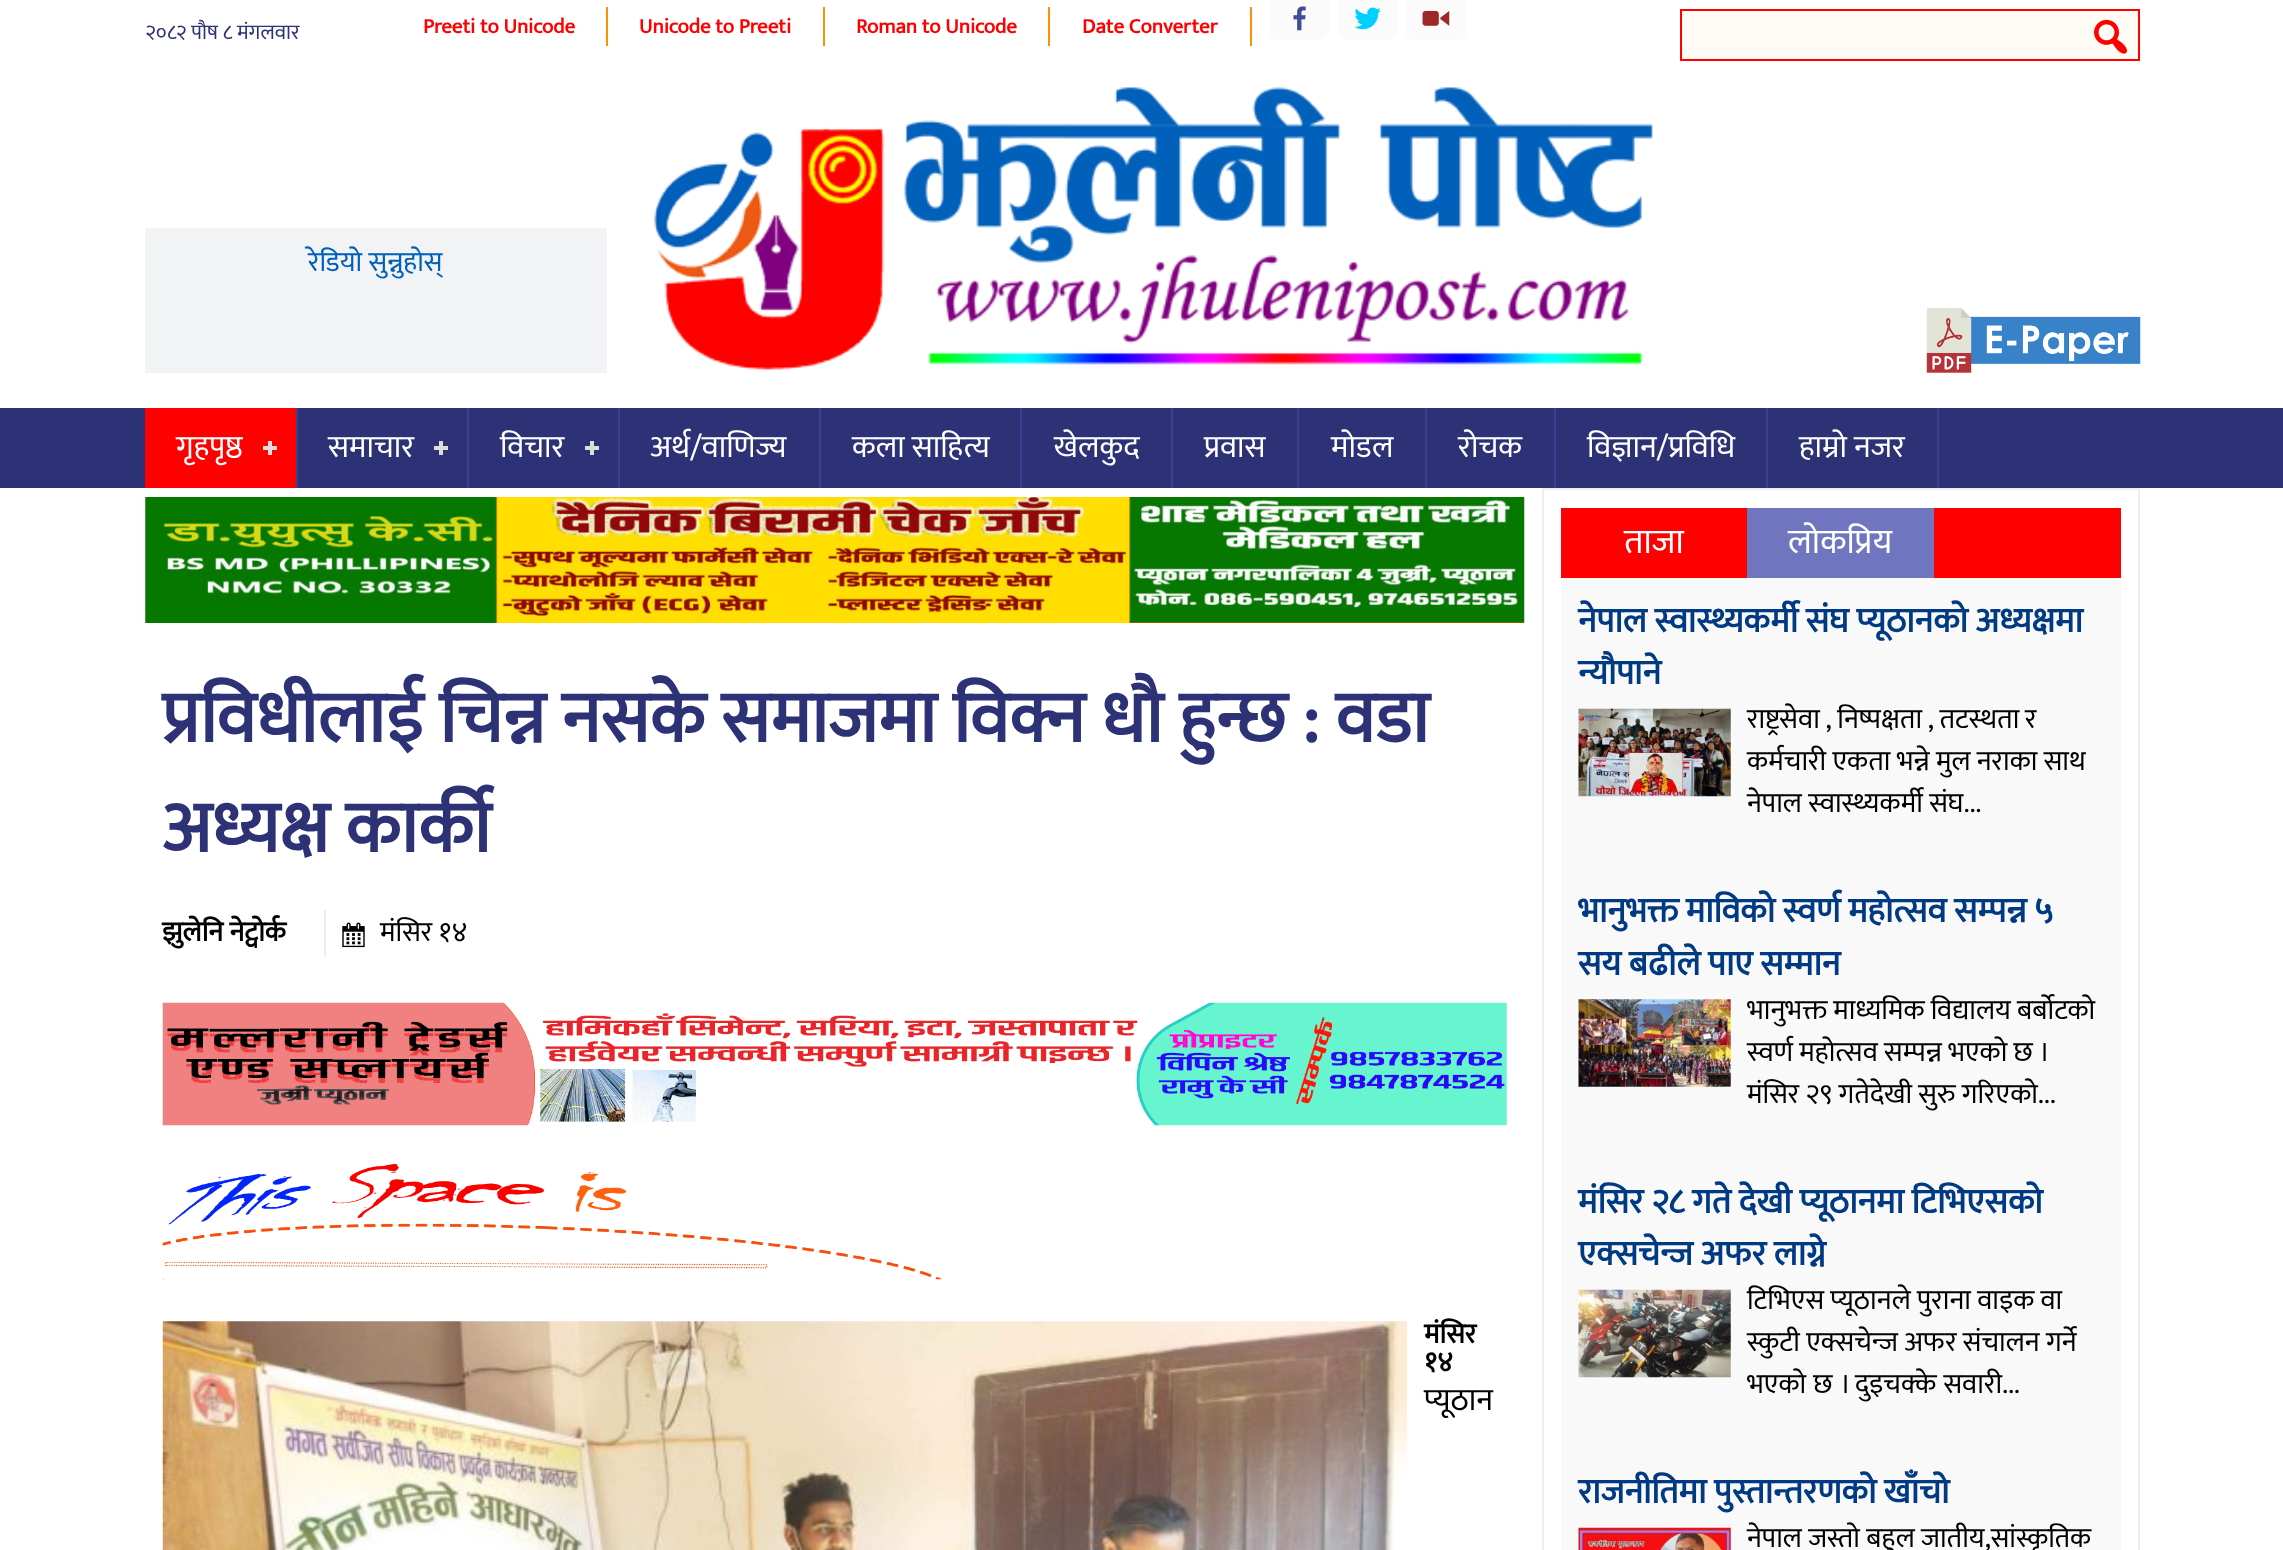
async function draw(canvas) {
  canvas.width = 2283
  canvas.height = 1550
  const ctx = canvas.getContext('2d')
  ctx.miterLimit = 4
  ctx.fontKerning = 'normal'
  async function loadImage(src) {
    const img = new Image()
    img.src = src
    await img.decode()
    return img
  }

  ctx.fillStyle = '#fff'
  ctx.fillRect(0, 0, 2283, 1550)
  ctx.drawImage(await loadImage('image0.png'), 146, 19, 154, 21)
  ctx.fillStyle = '#ff9002'
  ctx.fillRect(606, 7, 2, 39)
  ctx.font = 'bold 21px Mukta'
  ctx.fillStyle = '#f00'
  ctx.fillText('Preeti to Unicode', 423, 33)
  ctx.fillStyle = '#ff9002'
  ctx.fillRect(823, 7, 2, 39)
  ctx.fillStyle = '#f00'
  ctx.fillText('Unicode to Preeti', 639, 33)
  ctx.fillStyle = '#ff9002'
  ctx.fillRect(1048, 7, 2, 39)
  ctx.fillStyle = '#f00'
  ctx.fillText('Roman to Unicode', 856, 33)
  ctx.fillStyle = '#ff9002'
  ctx.fillRect(1250, 7, 2, 39)
  ctx.fillStyle = '#f00'
  ctx.fillText('Date Converter', 1082, 33)
  ctx.fillStyle = '#fbfbfb'
  ctx.beginPath()
  ctx.roundRect(1269, 0, 61, 40, [0, 0, 11, 11])
  ctx.fill()
  ctx.drawImage(await loadImage('image1.png'), 1293, 6, 13, 25)
  ctx.beginPath()
  ctx.roundRect(1337, 0, 61, 40, [0, 0, 11, 11])
  ctx.fill()
  ctx.drawImage(await loadImage('image2.png'), 1354, 7, 27, 23)
  ctx.beginPath()
  ctx.roundRect(1405, 0, 62, 40, [0, 0, 11, 11])
  ctx.fill()
  ctx.drawImage(await loadImage('image3.png'), 1422, 10, 28, 16)
  ctx.fillStyle = '#fffbf5'
  ctx.beginPath()
  ctx.rect(1681, 10, 458, 50)
  ctx.fill()
  ctx.strokeStyle = '#f00'
  ctx.lineWidth = 2
  ctx.stroke()
  ctx.drawImage(await loadImage('image4.png'), 2094, 19, 33, 35)
  ctx.fillStyle = '#f1f3f4'
  ctx.fillRect(145, 228, 462, 145)
  ctx.font = '28px Mukta'
  ctx.fillStyle = '#0160ba'
  ctx.fillText('रेडियो सुन्नुहोस्', 308, 271)
  ctx.drawImage(await loadImage('image5.png'), 654, 87, 999, 283)
  ctx.drawImage(await loadImage('image6.png'), 1926, 308, 215, 65)
  ctx.fillStyle = '#2c3275'
  ctx.fillRect(0, 408, 2283, 80)
  ctx.fillStyle = '#f00'
  ctx.fillRect(145, 408, 151, 80)
  ctx.fillStyle = '#3a4190'
  ctx.fillRect(296, 408, 2, 80)
  ctx.font = '31.5px Mukta'
  ctx.fillStyle = '#fff'
  ctx.fillText('गृहपृष्ठ', 176, 457)
  ctx.fillStyle = '#ddd'
  ctx.fillRect(268, 441, 4, 14)
  ctx.fillRect(263, 446, 14, 4)
  ctx.fillStyle = '#3a4190'
  ctx.fillRect(467, 408, 2, 80)
  ctx.fillStyle = '#fff'
  ctx.fillText('समाचार', 328, 457)
  ctx.fillStyle = '#ddd'
  ctx.fillRect(439, 441, 4, 14)
  ctx.fillRect(434, 446, 14, 4)
  ctx.fillStyle = '#3a4190'
  ctx.fillRect(618, 408, 2, 80)
  ctx.fillStyle = '#fff'
  ctx.fillText('विचार', 500, 457)
  ctx.fillStyle = '#ddd'
  ctx.fillRect(590, 441, 4, 14)
  ctx.fillRect(585, 446, 14, 4)
  ctx.fillStyle = '#3a4190'
  ctx.fillRect(819, 408, 2, 80)
  ctx.fillStyle = '#fff'
  ctx.fillText('अर्थ/वाणिज्य', 650, 457)
  ctx.fillStyle = '#3a4190'
  ctx.fillRect(1020, 408, 2, 80)
  ctx.fillStyle = '#fff'
  ctx.fillText('कला साहित्य', 852, 457)
  ctx.fillStyle = '#3a4190'
  ctx.fillRect(1171, 408, 2, 80)
  ctx.fillStyle = '#fff'
  ctx.fillText('खेलकुद', 1054, 457)
  ctx.fillStyle = '#3a4190'
  ctx.fillRect(1297, 408, 2, 80)
  ctx.fillStyle = '#fff'
  ctx.fillText('प्रवास', 1204, 457)
  ctx.fillStyle = '#3a4190'
  ctx.fillRect(1425, 408, 2, 80)
  ctx.fillStyle = '#fff'
  ctx.fillText('माेडल', 1331, 457)
  ctx.fillStyle = '#3a4190'
  ctx.fillRect(1554, 408, 2, 80)
  ctx.fillStyle = '#fff'
  ctx.fillText('रोचक', 1458, 457)
  ctx.fillStyle = '#3a4190'
  ctx.fillRect(1766, 408, 2, 80)
  ctx.fillStyle = '#fff'
  ctx.fillText('विज्ञान/प्रविधि', 1587, 457)
  ctx.fillStyle = '#3a4190'
  ctx.fillRect(1937, 408, 2, 80)
  ctx.fillStyle = '#fff'
  ctx.fillText('हाम्रो नजर', 1799, 457)
  ctx.drawImage(await loadImage('image7.png'), 145, 497, 1380, 126)
  ctx.font = 'bold 73.5px Mukta'
  ctx.fillStyle = '#2c3275'
  ctx.fillText('प्रविधीलाई चिन्न नसके समाजमा विक्न धौ हुन्छ : वडा', 162, 742)
  ctx.fillText('अध्यक्ष कार्की', 162, 852)
  ctx.font = 'bold 28px Mukta'
  ctx.fillStyle = '#000'
  ctx.fillText('झुलेनि नेट्वोर्क', 162, 941)
  ctx.fillStyle = '#eee'
  ctx.fillRect(324, 910, 2, 47)
  ctx.drawImage(await loadImage('image8.png'), 342, 922, 23, 26)
  ctx.font = '28px Mukta'
  ctx.fillStyle = '#000'
  ctx.fillText('मंसिर १४', 380, 941)
  ctx.drawImage(await loadImage('image9.png'), 162, 1002, 1345, 124)
  ctx.drawImage(await loadImage('image10.png'), 162, 1164, 780, 116)
  ctx.drawImage(await loadImage('image11.png'), 162, 1321, 1245, 229)
  ctx.font = 'bold 28px Mukta'
  ctx.fillText('मंसिर', 1424, 1343)
  ctx.fillText('१४', 1424, 1371)
  ctx.font = '31.5px Mukta'
  ctx.fillText('प्यूठान', 1424, 1410)
  ctx.strokeStyle = '#eee'
  ctx.strokeRect(1543, 489, 596, 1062)
  ctx.fillStyle = '#f00'
  ctx.fillRect(1561, 508, 560, 70)
  ctx.font = '35px Mukta'
  ctx.fillStyle = '#fff'
  ctx.fillText('ताजा', 1624, 553)
  ctx.fillStyle = '#6f75bf'
  ctx.fillRect(1747, 508, 187, 70)
  ctx.fillStyle = '#fff'
  ctx.fillText('लोकप्रिय', 1788, 553)
  ctx.fillStyle = '#f9f9f9'
  ctx.fillRect(1561, 578, 560, 972)
  ctx.font = 'bold 35px Mukta'
  ctx.fillStyle = '#003a82'
  ctx.fillText('नेपाल स्वास्थ्यकर्मी संघ प्यूठानको अध्यक्षमा', 1578, 632)
  ctx.fillText('न्यौपाने', 1578, 684)
  ctx.drawImage(await loadImage('image12.png'), 1578, 708, 153, 89)
  ctx.wordSpacing = '-0.5px'
  ctx.font = '28px Mukta'
  ctx.fillStyle = '#000'
  ctx.fillText('राष्ट्रसेवा , निष्पक्षता , तटस्थता र', 1747, 728)
  ctx.wordSpacing = '0px'
  ctx.fillText('कर्मचारी एकता भन्ने मुल नराका साथ', 1747, 770)
  ctx.fillText('नेपाल स्वास्थ्यकर्मी संघ...', 1747, 812)
  ctx.font = 'bold 35px Mukta'
  ctx.fillStyle = '#003a82'
  ctx.fillText('भानुभक्त माविको स्वर्ण महोत्सव सम्पन्न ५', 1578, 922)
  ctx.fillText('सय बढीले पाए सम्मान', 1578, 975)
  ctx.drawImage(await loadImage('image13.png'), 1578, 999, 153, 88)
  ctx.font = '28px Mukta'
  ctx.fillStyle = '#000'
  ctx.fillText('भानुभक्त माध्यमिक विद्यालय बर्बोटको', 1747, 1019)
  ctx.fillText('स्वर्ण महोत्सव सम्पन्न भएको छ ।', 1747, 1061)
  ctx.fillText('मंसिर २९ गतेदेखी सुरु गरिएको...', 1747, 1103)
  ctx.font = 'bold 35px Mukta'
  ctx.fillStyle = '#003a82'
  ctx.fillText('मंसिर २८ गते देखी प्यूठानमा टिभिएसको', 1578, 1213)
  ctx.fillText('एक्सचेन्ज अफर लाग्ने', 1578, 1265)
  ctx.drawImage(await loadImage('image14.png'), 1578, 1289, 153, 89)
  ctx.font = '28px Mukta'
  ctx.fillStyle = '#000'
  ctx.fillText('टिभिएस प्यूठानले पुराना वाइक वा', 1747, 1309)
  ctx.fillText('स्कुटी एक्सचेन्ज अफर संचालन गर्ने', 1747, 1351)
  ctx.wordSpacing = '1px'
  ctx.fillText('भएको छ । दुइचक्के सवारी...', 1747, 1393)
  ctx.wordSpacing = '0px'
  ctx.font = 'bold 35px Mukta'
  ctx.fillStyle = '#003a82'
  ctx.fillText('राजनीतिमा पुस्तान्तरणको खाँचो', 1578, 1503)
  ctx.drawImage(await loadImage('image15.png'), 1578, 1527, 153, 23)
  ctx.font = '28px Mukta'
  ctx.fillStyle = '#000'
  ctx.fillText('नेपाल जस्तो बहुल जातीय,सांस्कृतिक', 1747, 1547)
}

draw(document.querySelector('canvas'))
